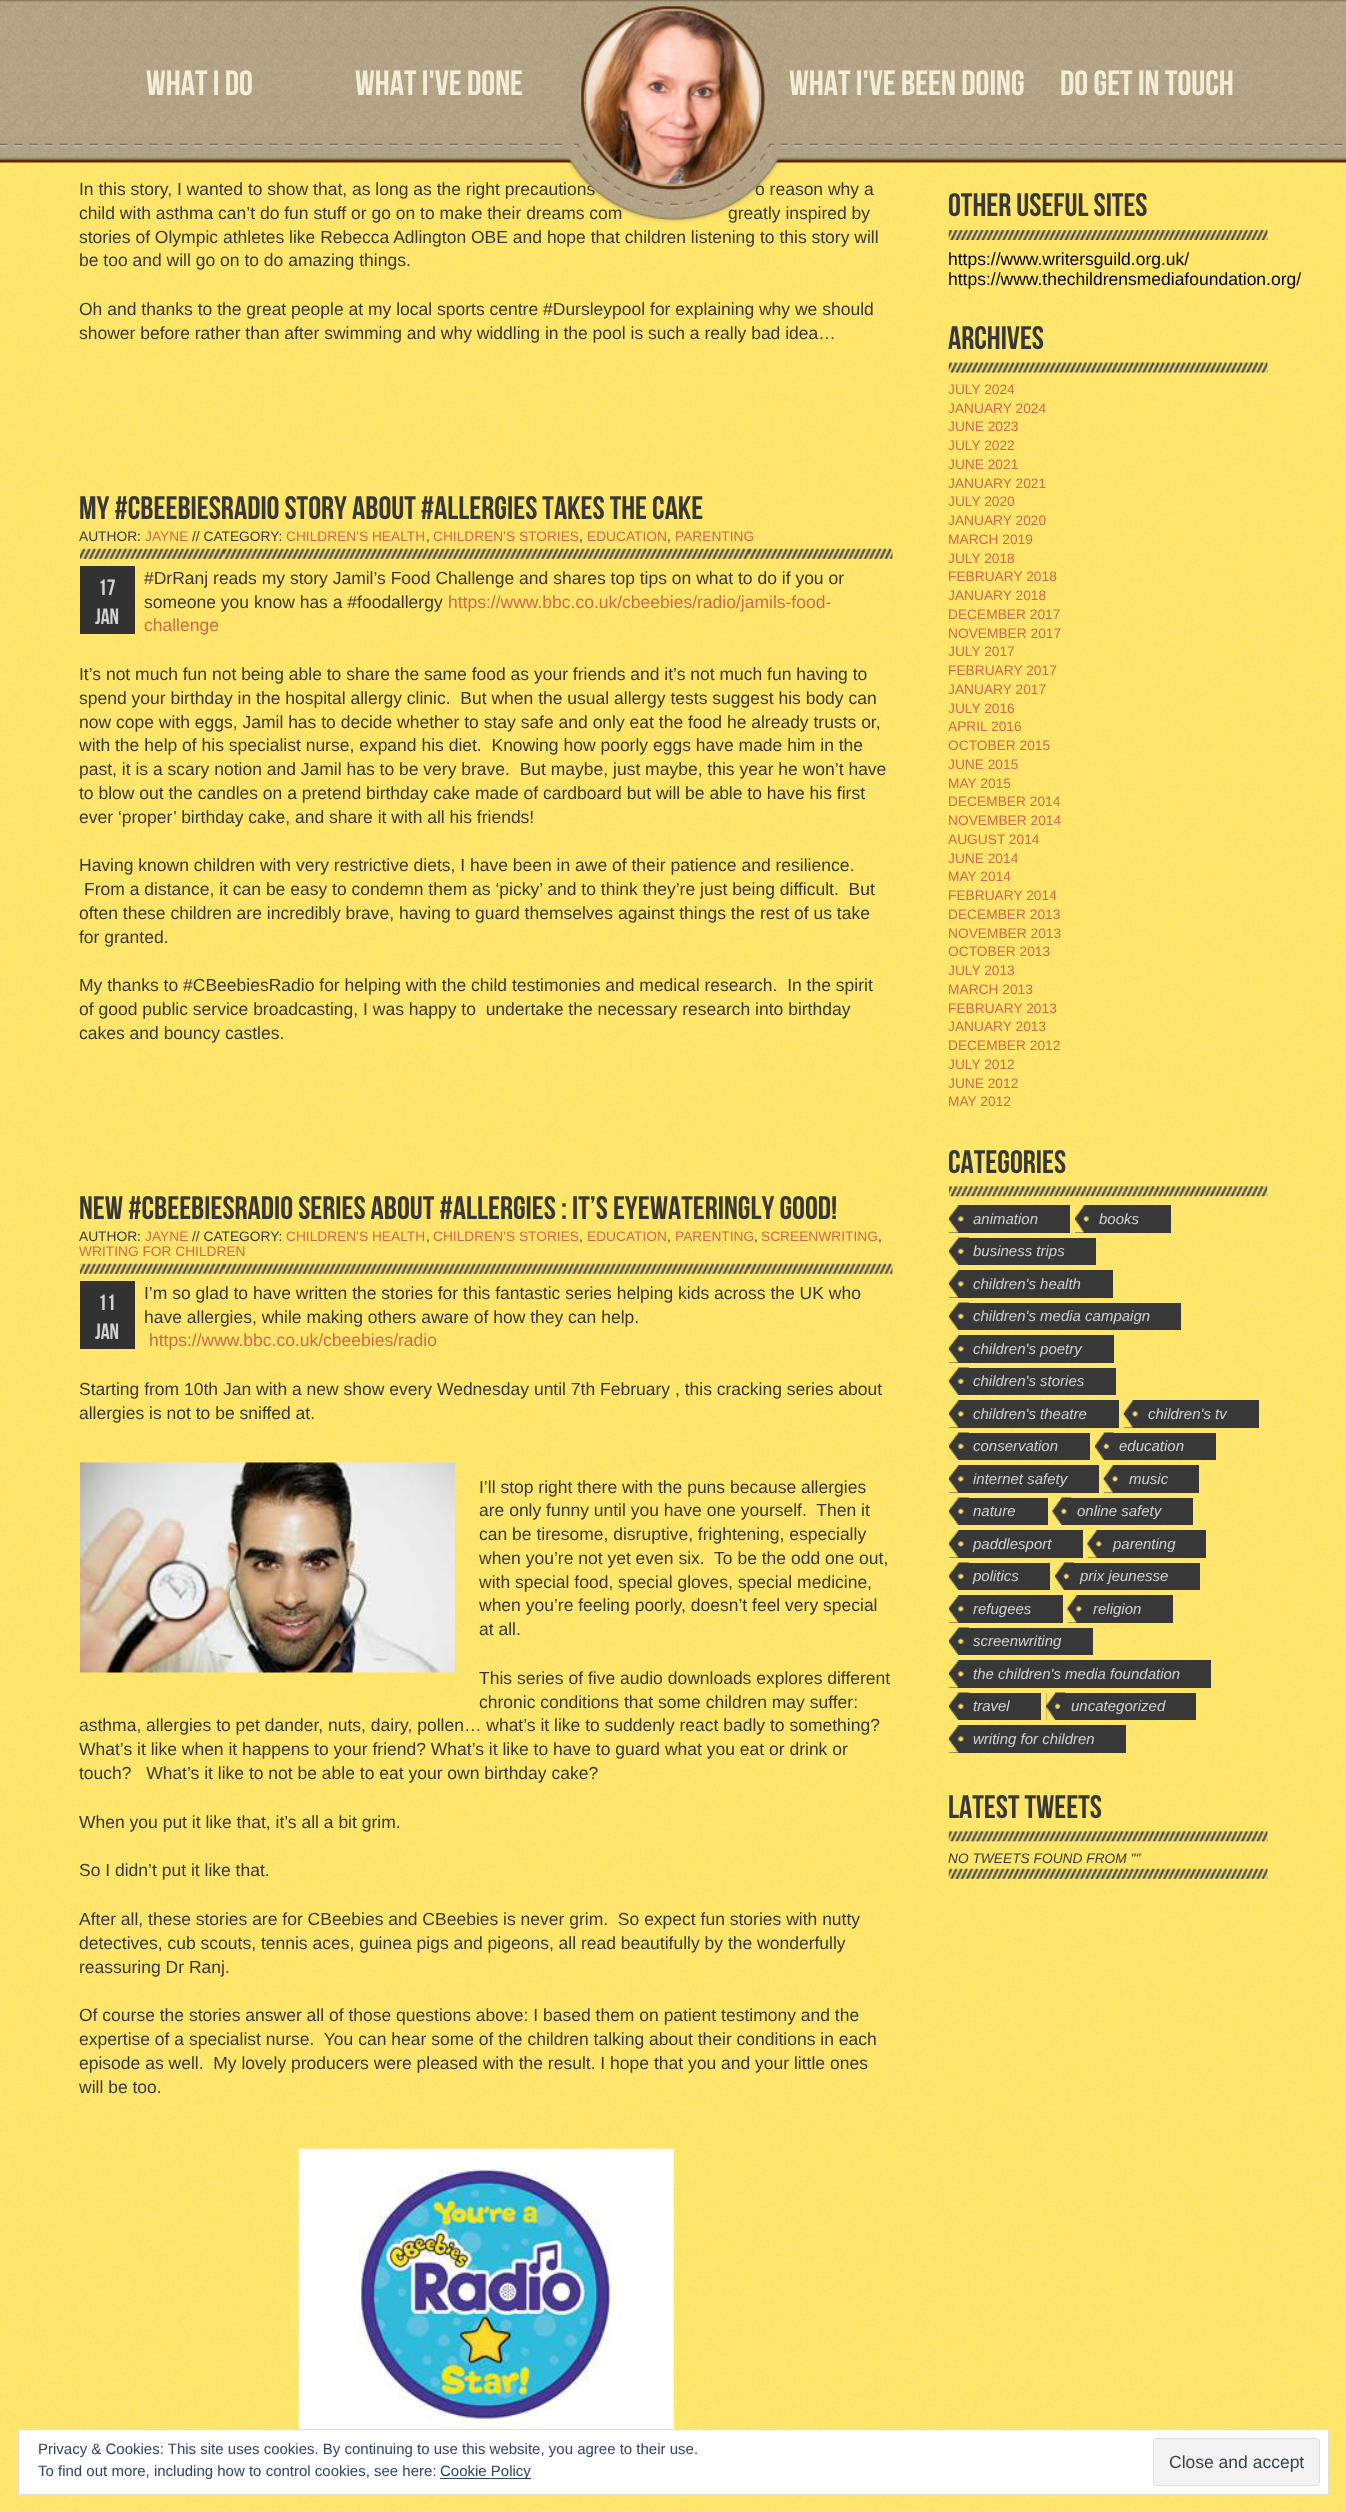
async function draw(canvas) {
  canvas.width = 1346
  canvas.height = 2512
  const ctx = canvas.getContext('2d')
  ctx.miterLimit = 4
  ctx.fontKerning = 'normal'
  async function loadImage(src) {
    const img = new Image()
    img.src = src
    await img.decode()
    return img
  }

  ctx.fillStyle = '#fff'
  ctx.fillRect(0, 0, 1346, 2512)
  ctx.drawImage(await loadImage('image0.png'), 0, 162, 1346, 2350)
  ctx.drawImage(await loadImage('image1.png'), 0, 0, 1346, 163)
  ctx.font = '17.5px Liberation Sans'
  ctx.fillStyle = '#383838'
  ctx.fillText('In this story, I wanted to show that, as long as the right precautions', 79, 195)
  ctx.fillText('o reason why a', 755, 195)
  ctx.fillText('child with asthma can’t do fun stuff or go on to make their dreams com', 79, 219)
  ctx.fillText('greatly inspired by', 728, 219)
  ctx.drawImage(await loadImage('image2.png'), 566, 1, 215, 222)
  ctx.font = '35px Bebas Neue'
  ctx.fillStyle = '#f6edd8'
  ctx.fillText('WHAT I DO', 146, 95)
  ctx.fillText('WHAT I\'VE DONE', 355, 95)
  ctx.fillText('WHAT I\'VE BEEN DOING', 789, 95)
  ctx.fillText('DO GET IN TOUCH', 1060, 95)
  ctx.font = '17.5px Liberation Sans'
  ctx.fillStyle = '#383838'
  ctx.fillText('stories of Olympic athletes like Rebecca Adlington OBE and hope that children listening to this story will', 79, 243)
  ctx.fillText('be too and will go on to do amazing things.', 79, 266)
  ctx.fillText('Oh and thanks to the great people at my local sports centre #Dursleypool for explaining why we should', 79, 315)
  ctx.fillText('shower before rather than after swimming and why widdling in the pool is such a really bad idea…', 79, 339)
  ctx.drawImage(await loadImage('image3.png'), 80, 548, 813, 11)
  ctx.font = '32.5px Bebas Neue'
  ctx.fillText('MY #CBEEBIESRADIO STORY ABOUT #ALLERGIES TAKES THE CAKE', 79, 519)
  ctx.font = '13.75px Liberation Sans'
  ctx.fillText('AUTHOR:', 79, 541)
  ctx.fillStyle = '#d06949'
  ctx.fillText('JAYNE', 145, 541)
  ctx.fillStyle = '#383838'
  ctx.fillText('// CATEGORY:', 192, 541)
  ctx.fillStyle = '#d06949'
  ctx.fillText('CHILDREN\'S HEALTH', 286, 541)
  ctx.fillStyle = '#383838'
  ctx.fillText(',', 426, 541)
  ctx.fillStyle = '#d06949'
  ctx.fillText('CHILDREN\'S STORIES', 433, 541)
  ctx.fillStyle = '#383838'
  ctx.fillText(',', 579, 541)
  ctx.fillStyle = '#d06949'
  ctx.fillText('EDUCATION', 587, 541)
  ctx.fillStyle = '#383838'
  ctx.fillText(',', 667, 541)
  ctx.fillStyle = '#d06949'
  ctx.fillText('PARENTING', 675, 541)
  ctx.fillStyle = '#323232'
  ctx.fillRect(80, 566, 55, 68)
  ctx.font = '22px Bebas Neue'
  ctx.fillStyle = '#d2d2d2'
  ctx.fillText('17', 98, 595)
  ctx.fillText('JAN', 95, 624)
  ctx.font = '17.5px Liberation Sans'
  ctx.fillStyle = '#383838'
  ctx.fillText('#DrRanj reads my story Jamil’s Food Challenge and shares top tips on what to do if you or', 144, 584)
  ctx.fillText('someone you know has a #foodallergy', 144, 608)
  ctx.fillStyle = '#d06949'
  ctx.fillText('https://www.bbc.co.uk/cbeebies/radio/jamils-food-', 448, 608)
  ctx.fillText('challenge', 144, 631)
  ctx.fillStyle = '#383838'
  ctx.fillText('It’s not much fun not being able to share the same food as your friends and it’s not much fun having to', 79, 680)
  ctx.fillText('spend your birthday in the hospital allergy clinic.  But when the usual allergy tests suggest his body can', 79, 704)
  ctx.fillText('now cope with eggs, Jamil has to decide whether to stay safe and only eat the food he already trusts or,', 79, 728)
  ctx.fillText('with the help of his specialist nurse, expand his diet.  Knowing how poorly eggs have made him in the', 79, 751)
  ctx.fillText('past, it is a scary notion and Jamil has to be very brave.  But maybe, just maybe, this year he won’t have', 79, 775)
  ctx.fillText('to blow out the candles on a pretend birthday cake made of cardboard but will be able to have his first', 79, 799)
  ctx.fillText('ever ‘proper’ birthday cake, and share it with all his friends!', 79, 823)
  ctx.fillText('Having known children with very restrictive diets, I have been in awe of their patience and resilience.', 79, 871)
  ctx.fillText('From a distance, it can be easy to condemn them as ‘picky’ and to think they’re just being difficult.  But', 84, 895)
  ctx.fillText('often these children are incredibly brave, having to guard themselves against things the rest of us take', 79, 919)
  ctx.fillText('for granted.', 79, 943)
  ctx.fillText('My thanks to #CBeebiesRadio for helping with the child testimonies and medical research.  In the spirit', 79, 991)
  ctx.fillText('of good public service broadcasting, I was happy to  undertake the necessary research into birthday', 79, 1015)
  ctx.fillText('cakes and bouncy castles.', 79, 1039)
  ctx.drawImage(await loadImage('image4.png'), 80, 1263, 813, 11)
  ctx.font = '32.5px Bebas Neue'
  ctx.fillText('NEW #CBEEBIESRADIO SERIES ABOUT #ALLERGIES : IT’S EYEWATERINGLY GOOD!', 79, 1219)
  ctx.font = '13.75px Liberation Sans'
  ctx.fillText('AUTHOR:', 79, 1241)
  ctx.fillStyle = '#d06949'
  ctx.fillText('JAYNE', 145, 1241)
  ctx.fillStyle = '#383838'
  ctx.fillText('// CATEGORY:', 192, 1241)
  ctx.fillStyle = '#d06949'
  ctx.fillText('CHILDREN\'S HEALTH', 286, 1241)
  ctx.fillStyle = '#383838'
  ctx.fillText(',', 426, 1241)
  ctx.fillStyle = '#d06949'
  ctx.fillText('CHILDREN\'S STORIES', 433, 1241)
  ctx.fillStyle = '#383838'
  ctx.fillText(',', 579, 1241)
  ctx.fillStyle = '#d06949'
  ctx.fillText('EDUCATION', 587, 1241)
  ctx.fillStyle = '#383838'
  ctx.fillText(',', 667, 1241)
  ctx.fillStyle = '#d06949'
  ctx.fillText('PARENTING', 675, 1241)
  ctx.fillStyle = '#383838'
  ctx.fillText(',', 754, 1241)
  ctx.fillStyle = '#d06949'
  ctx.fillText('SCREENWRITING', 761, 1241)
  ctx.fillStyle = '#383838'
  ctx.fillText(',', 878, 1241)
  ctx.fillStyle = '#d06949'
  ctx.fillText('WRITING FOR CHILDREN', 79, 1256)
  ctx.fillStyle = '#323232'
  ctx.fillRect(80, 1281, 55, 68)
  ctx.font = '22px Bebas Neue'
  ctx.fillStyle = '#d2d2d2'
  ctx.fillText('11', 98, 1310)
  ctx.fillText('JAN', 95, 1339)
  ctx.font = '17.5px Liberation Sans'
  ctx.fillStyle = '#383838'
  ctx.fillText('I’m so glad to have written the stories for this fantastic series helping kids across the UK who', 144, 1299)
  ctx.fillText('have allergies, while making others aware of how they can help.', 144, 1323)
  ctx.fillStyle = '#d06949'
  ctx.fillText('https://www.bbc.co.uk/cbeebies/radio', 149, 1346)
  ctx.fillStyle = '#383838'
  ctx.fillText('Starting from 10th Jan with a new show every Wednesday until 7th February , this cracking series about', 79, 1395)
  ctx.fillText('allergies is not to be sniffed at.', 79, 1419)
  ctx.drawImage(await loadImage('image5.png'), 80, 1462, 375, 211)
  ctx.fillText('I’ll stop right there with the puns because allergies', 479, 1493)
  ctx.fillText('are only funny until you have one yourself.  Then it', 479, 1516)
  ctx.fillText('can be tiresome, disruptive, frightening, especially', 479, 1540)
  ctx.fillText('when you’re not yet even six.  To be the odd one out,', 479, 1564)
  ctx.fillText('with special food, special gloves, special medicine,', 479, 1588)
  ctx.fillText('when you’re feeling poorly, doesn’t feel very special', 479, 1611)
  ctx.fillText('at all.', 479, 1635)
  ctx.fillText('This series of five audio downloads explores different', 479, 1684)
  ctx.fillText('chronic conditions that some children may suffer:', 479, 1708)
  ctx.fillText('asthma, allergies to pet dander, nuts, dairy, pollen… what’s it like to suddenly react badly to something?', 79, 1731)
  ctx.fillText('What’s it like when it happens to your friend? What’s it like to have to guard what you eat or drink or', 79, 1755)
  ctx.fillText('touch?   What’s it like to not be able to eat your own birthday cake?', 79, 1779)
  ctx.fillText('When you put it like that, it’s all a bit grim.', 79, 1828)
  ctx.fillText('So I didn’t put it like that.', 79, 1876)
  ctx.fillText('After all, these stories are for CBeebies and CBeebies is never grim.  So expect fun stories with nutty', 79, 1925)
  ctx.fillText('detectives, cub scouts, tennis aces, guinea pigs and pigeons, all read beautifully by the wonderfully', 79, 1949)
  ctx.fillText('reassuring Dr Ranj.', 79, 1973)
  ctx.fillText('Of course the stories answer all of those questions above: I based them on patient testimony and the', 79, 2021)
  ctx.fillText('expertise of a specialist nurse.  You can hear some of the children talking about their conditions in each', 79, 2045)
  ctx.fillText('episode as well.  My lovely producers were pleased with the result. I hope that you and your little ones', 79, 2069)
  ctx.fillText('will be too.', 79, 2093)
  ctx.drawImage(await loadImage('image6.png'), 298, 2148, 376, 281)
  ctx.drawImage(await loadImage('image7.png'), 948, 230, 320, 10)
  ctx.font = '32.5px Bebas Neue'
  ctx.fillText('OTHER USEFUL SITES', 948, 216)
  ctx.font = '17.5px Liberation Sans'
  ctx.fillStyle = '#000'
  ctx.fillText('https://www.writersguild.org.uk/', 948, 265)
  ctx.fillText('https://www.thechildrensmediafoundation.org/', 948, 285)
  ctx.drawImage(await loadImage('image8.png'), 948, 362, 320, 11)
  ctx.font = '32.5px Bebas Neue'
  ctx.fillStyle = '#383838'
  ctx.fillText('ARCHIVES', 948, 349)
  ctx.font = '13.75px Liberation Sans'
  ctx.fillStyle = '#d06949'
  ctx.fillText('JULY 2024', 948, 394)
  ctx.fillText('JANUARY 2024', 948, 413)
  ctx.fillText('JUNE 2023', 948, 431)
  ctx.fillText('JULY 2022', 948, 450)
  ctx.fillText('JUNE 2021', 948, 469)
  ctx.fillText('JANUARY 2021', 948, 488)
  ctx.fillText('JULY 2020', 948, 506)
  ctx.fillText('JANUARY 2020', 948, 525)
  ctx.fillText('MARCH 2019', 948, 544)
  ctx.fillText('JULY 2018', 948, 563)
  ctx.fillText('FEBRUARY 2018', 948, 581)
  ctx.fillText('JANUARY 2018', 948, 600)
  ctx.fillText('DECEMBER 2017', 948, 619)
  ctx.fillText('NOVEMBER 2017', 948, 638)
  ctx.fillText('JULY 2017', 948, 656)
  ctx.fillText('FEBRUARY 2017', 948, 675)
  ctx.fillText('JANUARY 2017', 948, 694)
  ctx.fillText('JULY 2016', 948, 713)
  ctx.fillText('APRIL 2016', 948, 731)
  ctx.fillText('OCTOBER 2015', 948, 750)
  ctx.fillText('JUNE 2015', 948, 769)
  ctx.fillText('MAY 2015', 948, 788)
  ctx.fillText('DECEMBER 2014', 948, 806)
  ctx.fillText('NOVEMBER 2014', 948, 825)
  ctx.fillText('AUGUST 2014', 948, 844)
  ctx.fillText('JUNE 2014', 948, 863)
  ctx.fillText('MAY 2014', 948, 881)
  ctx.fillText('FEBRUARY 2014', 948, 900)
  ctx.fillText('DECEMBER 2013', 948, 919)
  ctx.fillText('NOVEMBER 2013', 948, 938)
  ctx.fillText('OCTOBER 2013', 948, 956)
  ctx.fillText('JULY 2013', 948, 975)
  ctx.fillText('MARCH 2013', 948, 994)
  ctx.fillText('FEBRUARY 2013', 948, 1013)
  ctx.fillText('JANUARY 2013', 948, 1031)
  ctx.fillText('DECEMBER 2012', 948, 1050)
  ctx.fillText('JULY 2012', 948, 1069)
  ctx.fillText('JUNE 2012', 948, 1088)
  ctx.fillText('MAY 2012', 948, 1106)
  ctx.drawImage(await loadImage('image9.png'), 948, 1186, 320, 11)
  ctx.font = '32.5px Bebas Neue'
  ctx.fillStyle = '#383838'
  ctx.fillText('CATEGORIES', 948, 1173)
  ctx.fillRect(949, 1205, 121, 28)
  ctx.drawImage(await loadImage('image10.png'), 948, 1205, 16, 28)
  ctx.font = 'italic 15px Liberation Sans'
  ctx.fillStyle = '#d2d2d2'
  ctx.fillText('animation', 973, 1224)
  ctx.fillStyle = '#383838'
  ctx.fillRect(1075, 1205, 96, 28)
  ctx.drawImage(await loadImage('image11.png'), 1075, 1205, 14, 28)
  ctx.fillStyle = '#d2d2d2'
  ctx.fillText('books', 1099, 1224)
  ctx.fillStyle = '#383838'
  ctx.fillRect(968, 1238, 128, 27)
  ctx.drawImage(await loadImage('image12.png'), 948, 1237, 21, 28)
  ctx.fillStyle = '#d2d2d2'
  ctx.fillText('business trips', 973, 1256)
  ctx.fillStyle = '#383838'
  ctx.fillRect(949, 1270, 164, 28)
  ctx.drawImage(await loadImage('image13.png'), 948, 1270, 16, 28)
  ctx.fillStyle = '#d2d2d2'
  ctx.fillText('children\'s health', 973, 1289)
  ctx.fillStyle = '#383838'
  ctx.fillRect(968, 1303, 213, 27)
  ctx.drawImage(await loadImage('image14.png'), 948, 1302, 21, 28)
  ctx.fillStyle = '#d2d2d2'
  ctx.fillText('children\'s media campaign', 973, 1321)
  ctx.fillStyle = '#383838'
  ctx.fillRect(949, 1335, 165, 28)
  ctx.drawImage(await loadImage('image15.png'), 948, 1335, 16, 28)
  ctx.fillStyle = '#d2d2d2'
  ctx.fillText('children\'s poetry', 973, 1354)
  ctx.fillStyle = '#383838'
  ctx.fillRect(968, 1368, 148, 27)
  ctx.drawImage(await loadImage('image16.png'), 948, 1367, 21, 28)
  ctx.fillStyle = '#d2d2d2'
  ctx.fillText('children\'s stories', 973, 1386)
  ctx.fillStyle = '#383838'
  ctx.fillRect(949, 1400, 170, 28)
  ctx.drawImage(await loadImage('image17.png'), 948, 1400, 16, 28)
  ctx.fillStyle = '#d2d2d2'
  ctx.fillText('children\'s theatre', 973, 1419)
  ctx.fillStyle = '#383838'
  ctx.fillRect(1124, 1400, 135, 28)
  ctx.drawImage(await loadImage('image18.png'), 1123, 1400, 15, 28)
  ctx.fillStyle = '#d2d2d2'
  ctx.fillText('children\'s tv', 1148, 1419)
  ctx.fillStyle = '#383838'
  ctx.fillRect(968, 1433, 122, 27)
  ctx.drawImage(await loadImage('image19.png'), 948, 1432, 21, 28)
  ctx.fillStyle = '#d2d2d2'
  ctx.fillText('conservation', 973, 1451)
  ctx.fillStyle = '#383838'
  ctx.fillRect(1113, 1433, 103, 27)
  ctx.drawImage(await loadImage('image20.png'), 1095, 1432, 19, 28)
  ctx.fillStyle = '#d2d2d2'
  ctx.fillText('education', 1119, 1451)
  ctx.fillStyle = '#383838'
  ctx.fillRect(949, 1465, 150, 28)
  ctx.drawImage(await loadImage('image21.png'), 948, 1465, 16, 28)
  ctx.fillStyle = '#d2d2d2'
  ctx.fillText('internet safety', 973, 1484)
  ctx.fillStyle = '#383838'
  ctx.fillRect(1104, 1465, 95, 28)
  ctx.drawImage(await loadImage('image22.png'), 1103, 1465, 15, 28)
  ctx.fillStyle = '#d2d2d2'
  ctx.fillText('music', 1129, 1484)
  ctx.fillStyle = '#383838'
  ctx.fillRect(968, 1498, 80, 27)
  ctx.drawImage(await loadImage('image23.png'), 948, 1497, 21, 28)
  ctx.fillStyle = '#d2d2d2'
  ctx.fillText('nature', 973, 1516)
  ctx.fillStyle = '#383838'
  ctx.fillRect(1071, 1498, 122, 27)
  ctx.drawImage(await loadImage('image24.png'), 1052, 1497, 20, 28)
  ctx.fillStyle = '#d2d2d2'
  ctx.fillText('online safety', 1077, 1516)
  ctx.fillStyle = '#383838'
  ctx.fillRect(949, 1530, 134, 28)
  ctx.drawImage(await loadImage('image25.png'), 948, 1530, 16, 28)
  ctx.fillStyle = '#d2d2d2'
  ctx.fillText('paddlesport', 973, 1549)
  ctx.fillStyle = '#383838'
  ctx.fillRect(1088, 1530, 118, 28)
  ctx.drawImage(await loadImage('image26.png'), 1087, 1530, 15, 28)
  ctx.fillStyle = '#d2d2d2'
  ctx.fillText('parenting', 1113, 1549)
  ctx.fillStyle = '#383838'
  ctx.fillRect(968, 1563, 82, 27)
  ctx.drawImage(await loadImage('image27.png'), 948, 1562, 21, 28)
  ctx.fillStyle = '#d2d2d2'
  ctx.fillText('politics', 973, 1581)
  ctx.fillStyle = '#383838'
  ctx.fillRect(1073, 1563, 127, 27)
  ctx.drawImage(await loadImage('image28.png'), 1055, 1562, 19, 28)
  ctx.fillStyle = '#d2d2d2'
  ctx.fillText('prix jeunesse', 1080, 1581)
  ctx.fillStyle = '#383838'
  ctx.fillRect(949, 1595, 114, 28)
  ctx.drawImage(await loadImage('image29.png'), 948, 1595, 16, 28)
  ctx.fillStyle = '#d2d2d2'
  ctx.fillText('refugees', 973, 1614)
  ctx.fillStyle = '#383838'
  ctx.fillRect(1068, 1595, 105, 28)
  ctx.drawImage(await loadImage('image30.png'), 1067, 1595, 15, 28)
  ctx.fillStyle = '#d2d2d2'
  ctx.fillText('religion', 1093, 1614)
  ctx.fillStyle = '#383838'
  ctx.fillRect(968, 1628, 125, 27)
  ctx.drawImage(await loadImage('image31.png'), 948, 1627, 21, 28)
  ctx.fillStyle = '#d2d2d2'
  ctx.fillText('screenwriting', 973, 1646)
  ctx.fillStyle = '#383838'
  ctx.fillRect(949, 1660, 262, 28)
  ctx.drawImage(await loadImage('image32.png'), 948, 1660, 16, 28)
  ctx.fillStyle = '#d2d2d2'
  ctx.fillText('the children\'s media foundation', 973, 1679)
  ctx.fillStyle = '#383838'
  ctx.fillRect(968, 1693, 73, 27)
  ctx.drawImage(await loadImage('image33.png'), 948, 1692, 21, 28)
  ctx.fillStyle = '#d2d2d2'
  ctx.fillText('travel', 973, 1711)
  ctx.fillStyle = '#383838'
  ctx.fillRect(1046, 1693, 150, 27)
  ctx.drawImage(await loadImage('image34.png'), 1046, 1692, 19, 28)
  ctx.fillStyle = '#d2d2d2'
  ctx.fillText('uncategorized', 1071, 1711)
  ctx.fillStyle = '#383838'
  ctx.fillRect(949, 1725, 177, 28)
  ctx.drawImage(await loadImage('image35.png'), 948, 1725, 16, 28)
  ctx.fillStyle = '#d2d2d2'
  ctx.fillText('writing for children', 973, 1744)
  ctx.drawImage(await loadImage('image36.png'), 948, 1831, 320, 11)
  ctx.font = '32.5px Bebas Neue'
  ctx.fillStyle = '#383838'
  ctx.fillText('LATEST TWEETS', 948, 1818)
  ctx.drawImage(await loadImage('image37.png'), 948, 1868, 320, 11)
  ctx.font = 'italic 13.75px Liberation Sans'
  ctx.fillText('NO TWEETS FOUND FROM ""', 948, 1863)
  ctx.fillStyle = '#fff'
  ctx.beginPath()
  ctx.rect(18.5, 2429.5, 1310, 65)
  ctx.fill()
  ctx.strokeStyle = '#dedede'
  ctx.stroke()
  ctx.font = '15px Liberation Sans'
  ctx.fillStyle = '#2e4467'
  ctx.fillText('Privacy & Cookies: This site uses cookies. By continuing to use this website, you agree to their use.', 38, 2454)
  ctx.fillText('To find out more, including how to control cookies, see here:', 38, 2476)
  ctx.fillRect(440, 2478, 91, 1)
  ctx.fillText('Cookie Policy', 440, 2476)
  ctx.fillStyle = '#f3f3f3'
  ctx.beginPath()
  ctx.roundRect(1153.5, 2438.5, 166, 47, 3.5)
  ctx.fill()
  ctx.stroke()
  ctx.font = '17.5px Liberation Sans'
  ctx.fillStyle = '#2e4453'
  ctx.fillText('Close and accept', 1169, 2468)
}

draw(document.querySelector('canvas'))
